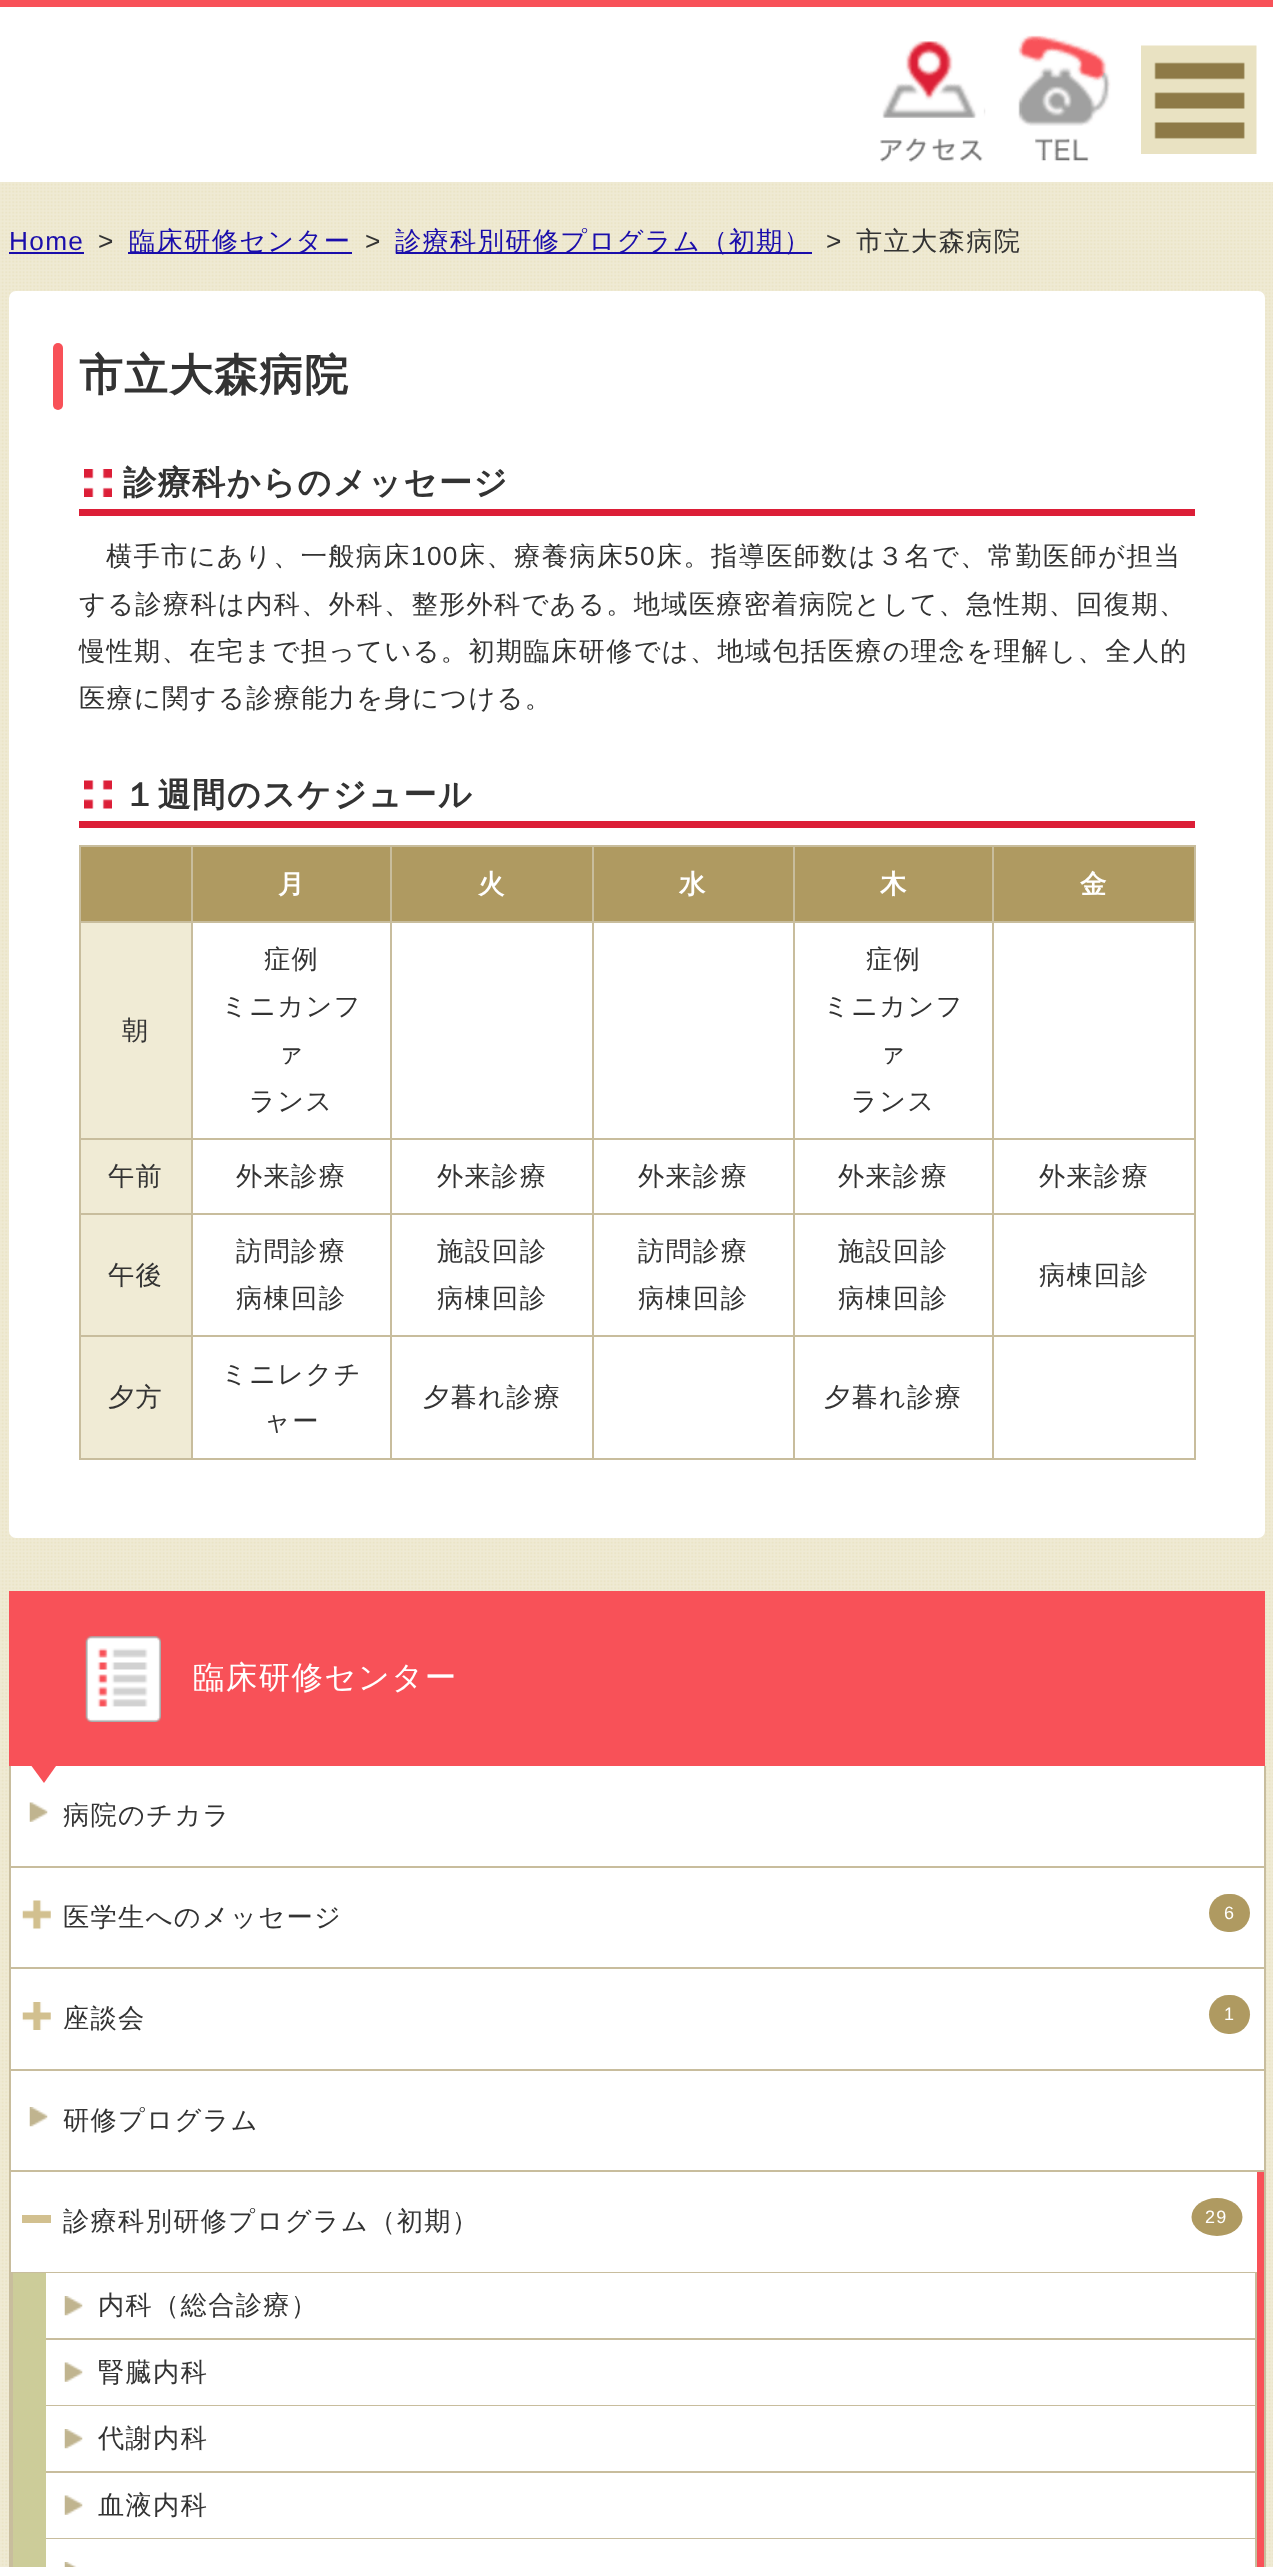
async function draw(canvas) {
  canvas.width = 1273
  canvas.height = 2567
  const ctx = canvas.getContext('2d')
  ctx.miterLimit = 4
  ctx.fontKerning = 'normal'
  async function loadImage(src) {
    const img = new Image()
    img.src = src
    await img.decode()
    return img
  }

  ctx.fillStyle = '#fff'
  ctx.fillRect(0, 0, 1273, 2567)
  ctx.drawImage(await loadImage('image0.png'), 0, 182, 1273, 2385)
  ctx.fillStyle = '#f85158'
  ctx.fillRect(0, 0, 1273, 7)
  ctx.drawImage(await loadImage('image1.png'), 880, 41, 106, 121)
  ctx.drawImage(await loadImage('image2.png'), 1018, 35, 93, 127)
  ctx.drawImage(await loadImage('image3.png'), 1141, 45, 116, 109)
  ctx.letterSpacing = '1.3px'
  ctx.font = '26.25px Liberation Sans'
  ctx.fillStyle = '#1a0dab'
  ctx.fillText('Home', 9, 250)
  ctx.fillRect(9, 252, 75, 2)
  ctx.fillStyle = '#333'
  ctx.fillText('>', 98, 250)
  ctx.fillStyle = '#1a0dab'
  ctx.fillRect(128, 252, 224, 2)
  ctx.font = '500 26.25px WenQuanYi Zen Hei'
  ctx.fillText('臨床研修センター', 129, 250)
  ctx.font = '26.25px Liberation Sans'
  ctx.fillStyle = '#333'
  ctx.fillText('>', 365, 250)
  ctx.fillStyle = '#1a0dab'
  ctx.fillRect(396, 252, 416, 2)
  ctx.font = '500 26.25px WenQuanYi Zen Hei'
  ctx.fillText('診療科別研修プログラム（初期）', 395, 250)
  ctx.font = '26.25px Liberation Sans'
  ctx.fillStyle = '#333'
  ctx.fillText('>', 826, 250)
  ctx.font = '500 26.25px WenQuanYi Zen Hei'
  ctx.fillText('市立大森病院', 856, 250)
  ctx.fillStyle = '#fff'
  ctx.beginPath()
  ctx.roundRect(9, 291, 1256, 1247, 7)
  ctx.fill()
  ctx.fillStyle = '#f85158'
  ctx.beginPath()
  ctx.roundRect(53, 343, 10, 67, 5)
  ctx.fill()
  ctx.font = 'bold 43.75px WenQuanYi Zen Hei'
  ctx.fillStyle = '#333'
  ctx.fillText('市立大森病院', 79, 390)
  ctx.drawImage(await loadImage('image4.png'), 84, 469, 28, 28)
  ctx.fillStyle = '#dc1e37'
  ctx.fillRect(79, 509, 1116, 7)
  ctx.font = 'bold 33.25px WenQuanYi Zen Hei'
  ctx.fillStyle = '#333'
  ctx.fillText('診療科からのメッセージ', 123, 494)
  ctx.font = '500 26.25px WenQuanYi Zen Hei'
  ctx.fillText('横手市にあり、一般病床', 106, 565)
  ctx.font = '26.25px Liberation Sans'
  ctx.fillText('100', 411, 565)
  ctx.font = '500 26.25px WenQuanYi Zen Hei'
  ctx.fillText('床、療養病床', 459, 565)
  ctx.font = '26.25px Liberation Sans'
  ctx.fillText('50', 624, 565)
  ctx.font = '500 26.25px WenQuanYi Zen Hei'
  ctx.fillText('床。指導医師数は３名で、常勤医師が担当', 656, 565)
  ctx.fillText('する診療科は内科、外科、整形外科である。地域医療密着病院として、急性期、回復期、', 79, 613)
  ctx.fillText('慢性期、在宅まで担っている。初期臨床研修では、地域包括医療の理念を理解し、全人的', 79, 660)
  ctx.fillText('医療に関する診療能力を身につける。', 79, 707)
  ctx.drawImage(await loadImage('image5.png'), 84, 780, 28, 29)
  ctx.fillStyle = '#dc1e37'
  ctx.fillRect(79, 821, 1116, 7)
  ctx.font = 'bold 33.25px WenQuanYi Zen Hei'
  ctx.fillStyle = '#333'
  ctx.fillText('１週間のスケジュール', 123, 806)
  ctx.fillStyle = '#c8bd9d'
  ctx.fillRect(79, 845, 1116, 2)
  ctx.fillRect(1194, 845, 2, 615)
  ctx.fillRect(79, 1458, 1116, 2)
  ctx.fillRect(79, 845, 2, 615)
  ctx.fillStyle = '#af9a61'
  ctx.fillRect(81, 847, 110, 74)
  ctx.fillRect(193, 847, 197, 74)
  ctx.fillStyle = '#c8bd9d'
  ctx.fillRect(992, 921, 203, 2)
  ctx.fillRect(992, 1138, 203, 2)
  ctx.fillRect(992, 1213, 203, 2)
  ctx.fillRect(992, 1335, 203, 2)
  ctx.fillRect(992, 1335, 2, 125)
  ctx.fillRect(793, 1335, 201, 2)
  ctx.fillRect(992, 1213, 2, 124)
  ctx.fillRect(793, 1213, 201, 2)
  ctx.fillRect(992, 1138, 2, 77)
  ctx.fillRect(793, 1138, 201, 2)
  ctx.fillRect(992, 921, 2, 218)
  ctx.fillRect(793, 921, 201, 2)
  ctx.fillRect(793, 1335, 2, 125)
  ctx.fillRect(592, 1335, 203, 2)
  ctx.fillRect(793, 1213, 2, 124)
  ctx.fillRect(592, 1213, 203, 2)
  ctx.fillRect(793, 1138, 2, 77)
  ctx.fillRect(592, 1138, 203, 2)
  ctx.fillRect(793, 921, 2, 218)
  ctx.fillRect(592, 921, 203, 2)
  ctx.fillRect(592, 1335, 2, 125)
  ctx.fillRect(390, 1335, 203, 2)
  ctx.fillRect(592, 1213, 2, 124)
  ctx.fillRect(390, 1213, 203, 2)
  ctx.fillRect(592, 1138, 2, 77)
  ctx.fillRect(390, 1138, 203, 2)
  ctx.fillRect(592, 921, 2, 218)
  ctx.fillRect(390, 921, 203, 2)
  ctx.fillRect(390, 1335, 2, 125)
  ctx.fillRect(191, 1335, 201, 2)
  ctx.fillRect(390, 1213, 2, 124)
  ctx.fillRect(191, 1213, 201, 2)
  ctx.fillRect(390, 1138, 2, 77)
  ctx.fillRect(191, 1138, 201, 2)
  ctx.fillRect(390, 921, 2, 218)
  ctx.fillRect(191, 921, 201, 2)
  ctx.fillRect(191, 1335, 2, 125)
  ctx.fillRect(79, 1335, 114, 2)
  ctx.fillRect(191, 1213, 2, 124)
  ctx.fillRect(79, 1213, 114, 2)
  ctx.fillRect(191, 1138, 2, 77)
  ctx.fillRect(79, 1138, 114, 2)
  ctx.fillRect(191, 921, 2, 218)
  ctx.fillRect(79, 921, 114, 2)
  ctx.fillRect(191, 845, 2, 77)
  ctx.font = 'bold 26.25px WenQuanYi Zen Hei'
  ctx.fillStyle = '#fff'
  ctx.fillText('月', 278, 893)
  ctx.fillStyle = '#af9a61'
  ctx.fillRect(392, 847, 200, 74)
  ctx.fillStyle = '#c8bd9d'
  ctx.fillRect(390, 845, 2, 77)
  ctx.fillStyle = '#fff'
  ctx.fillText('火', 478, 893)
  ctx.fillStyle = '#af9a61'
  ctx.fillRect(594, 847, 199, 74)
  ctx.fillStyle = '#c8bd9d'
  ctx.fillRect(592, 845, 2, 77)
  ctx.fillStyle = '#fff'
  ctx.fillText('水', 679, 893)
  ctx.fillStyle = '#af9a61'
  ctx.fillRect(795, 847, 197, 74)
  ctx.fillStyle = '#c8bd9d'
  ctx.fillRect(793, 845, 2, 77)
  ctx.fillStyle = '#fff'
  ctx.fillText('木', 880, 893)
  ctx.fillStyle = '#af9a61'
  ctx.fillRect(994, 847, 200, 74)
  ctx.fillStyle = '#c8bd9d'
  ctx.fillRect(992, 845, 2, 77)
  ctx.fillStyle = '#fff'
  ctx.fillText('金', 1080, 893)
  ctx.fillStyle = '#f0ebd5'
  ctx.fillRect(81, 923, 110, 215)
  ctx.font = '500 26.25px WenQuanYi Zen Hei'
  ctx.fillStyle = '#333'
  ctx.fillText('朝', 122, 1039)
  ctx.fillText('症例', 264, 968)
  ctx.fillText('ミニカンフ', 221, 1015)
  ctx.fillText('ァ', 277, 1062)
  ctx.fillText('ランス', 249, 1110)
  ctx.fillText('症例', 866, 968)
  ctx.fillText('ミニカンフ', 823, 1015)
  ctx.fillText('ァ', 879, 1062)
  ctx.fillText('ランス', 851, 1110)
  ctx.fillStyle = '#f0ebd5'
  ctx.fillRect(81, 1140, 110, 73)
  ctx.fillStyle = '#333'
  ctx.fillText('午前', 108, 1185)
  ctx.fillText('外来診療', 236, 1185)
  ctx.fillText('外来診療', 437, 1185)
  ctx.fillText('外来診療', 638, 1185)
  ctx.fillText('外来診療', 838, 1185)
  ctx.fillText('外来診療', 1039, 1185)
  ctx.fillStyle = '#f0ebd5'
  ctx.fillRect(81, 1215, 110, 120)
  ctx.fillStyle = '#333'
  ctx.fillText('午後', 108, 1284)
  ctx.fillText('訪問診療', 236, 1260)
  ctx.fillText('病棟回診', 236, 1307)
  ctx.fillText('施設回診', 437, 1260)
  ctx.fillText('病棟回診', 437, 1307)
  ctx.fillText('訪問診療', 638, 1260)
  ctx.fillText('病棟回診', 638, 1307)
  ctx.fillText('施設回診', 838, 1260)
  ctx.fillText('病棟回診', 838, 1307)
  ctx.fillText('病棟回診', 1039, 1284)
  ctx.fillStyle = '#f0ebd5'
  ctx.fillRect(81, 1337, 110, 121)
  ctx.fillStyle = '#333'
  ctx.fillText('夕方', 108, 1406)
  ctx.fillText('ミニレクチ', 221, 1383)
  ctx.fillText('ャー', 264, 1430)
  ctx.fillText('夕暮れ診療', 423, 1406)
  ctx.fillText('夕暮れ診療', 824, 1406)
  ctx.fillStyle = '#fff'
  ctx.fillRect(11, 1766, 1253, 506)
  ctx.fillStyle = '#f85158'
  ctx.fillRect(9, 1591, 1256, 175)
  ctx.drawImage(await loadImage('image6.png'), 85, 1636, 76, 86)
  ctx.font = '500 31.5px WenQuanYi Zen Hei'
  ctx.fillStyle = '#fff'
  ctx.fillText('臨床研修センター', 193, 1688)
  ctx.fillStyle = '#f85158'
  ctx.beginPath()
  ctx.moveTo(31.5, 1766)
  ctx.lineTo(56, 1766)
  ctx.lineTo(44, 1783)
  ctx.closePath()
  ctx.fill()
  ctx.fillStyle = '#c8bd9d'
  ctx.fillRect(1264, 1766, 2, 801)
  ctx.fillRect(9, 1766, 2, 801)
  ctx.drawImage(await loadImage('image7.png'), 29, 1802, 19, 20)
  ctx.fillRect(11, 1866, 1253, 2)
  ctx.font = '500 26.25px WenQuanYi Zen Hei'
  ctx.fillStyle = '#333'
  ctx.fillText('病院のチカラ', 63, 1824)
  ctx.drawImage(await loadImage('image8.png'), 22, 1900, 29, 29)
  ctx.fillStyle = '#c8bd9d'
  ctx.fillRect(11, 1967, 1253, 2)
  ctx.fillStyle = '#333'
  ctx.fillText('医学生へのメッセージ', 63, 1926)
  ctx.fillStyle = '#af9a61'
  ctx.beginPath()
  ctx.roundRect(1209, 1894, 41, 38, 19)
  ctx.fill()
  ctx.font = '18px Liberation Sans'
  ctx.fillStyle = '#fff'
  ctx.fillText('6', 1224, 1919)
  ctx.drawImage(await loadImage('image9.png'), 22, 2002, 29, 28)
  ctx.fillStyle = '#c8bd9d'
  ctx.fillRect(11, 2069, 1253, 2)
  ctx.font = '500 26.25px WenQuanYi Zen Hei'
  ctx.fillStyle = '#333'
  ctx.fillText('座談会', 63, 2027)
  ctx.fillStyle = '#af9a61'
  ctx.beginPath()
  ctx.roundRect(1209, 1995, 41, 39, 19.5)
  ctx.fill()
  ctx.font = '18px Liberation Sans'
  ctx.fillStyle = '#fff'
  ctx.fillText('1', 1224, 2020)
  ctx.drawImage(await loadImage('image10.png'), 29, 2107, 19, 20)
  ctx.fillStyle = '#c8bd9d'
  ctx.fillRect(11, 2170, 1253, 2)
  ctx.font = '500 26.25px WenQuanYi Zen Hei'
  ctx.fillStyle = '#333'
  ctx.fillText('研修プログラム', 63, 2129)
  ctx.fillStyle = '#f85158'
  ctx.fillRect(1257, 2172, 7, 395)
  ctx.fillStyle = '#d2c08f'
  ctx.fillRect(22, 2215, 29, 8)
  ctx.fillStyle = '#c8bd9d'
  ctx.fillRect(11, 2272, 1246, 1)
  ctx.fillStyle = '#333'
  ctx.fillText('診療科別研修プログラム（初期）', 63, 2230)
  ctx.fillStyle = '#af9a61'
  ctx.beginPath()
  ctx.ellipse(1217, 2217, 25.5, 19, 0, 0, 2 * Math.PI)
  ctx.fill()
  ctx.font = '18px Liberation Sans'
  ctx.fillStyle = '#fff'
  ctx.fillText('29', 1205, 2223)
  ctx.fillStyle = '#cc9'
  ctx.fillRect(13, 2273, 33, 294)
  ctx.fillStyle = '#c8bd9d'
  ctx.fillRect(1255, 2273, 2, 294)
  ctx.fillRect(11, 2273, 2, 294)
  ctx.fillStyle = '#fff'
  ctx.fillRect(46, 2273, 1209, 65)
  ctx.drawImage(await loadImage('image10.png'), 64, 2296, 19, 20)
  ctx.fillStyle = '#c8bd9d'
  ctx.fillRect(46, 2338, 1209, 2)
  ctx.font = '500 26.25px WenQuanYi Zen Hei'
  ctx.fillStyle = '#333'
  ctx.fillText('内科（総合診療）', 98, 2314)
  ctx.fillStyle = '#fff'
  ctx.fillRect(46, 2340, 1209, 65)
  ctx.drawImage(await loadImage('image11.png'), 64, 2362, 19, 20)
  ctx.fillStyle = '#c8bd9d'
  ctx.fillRect(46, 2405, 1209, 1)
  ctx.fillStyle = '#333'
  ctx.fillText('腎臓内科', 98, 2381)
  ctx.fillStyle = '#fff'
  ctx.fillRect(46, 2406, 1209, 65)
  ctx.drawImage(await loadImage('image10.png'), 64, 2429, 19, 20)
  ctx.fillStyle = '#c8bd9d'
  ctx.fillRect(46, 2471, 1209, 2)
  ctx.fillStyle = '#333'
  ctx.fillText('代謝内科', 98, 2447)
  ctx.fillStyle = '#fff'
  ctx.fillRect(46, 2473, 1209, 65)
  ctx.drawImage(await loadImage('image11.png'), 64, 2495, 19, 20)
  ctx.fillStyle = '#c8bd9d'
  ctx.fillRect(46, 2538, 1209, 1)
  ctx.fillStyle = '#333'
  ctx.fillText('血液内科', 98, 2514)
  ctx.fillStyle = '#fff'
  ctx.fillRect(46, 2539, 1209, 28)
  ctx.drawImage(await loadImage('image12.png'), 64, 2562, 13, 5)
}

draw(document.querySelector('canvas'))
